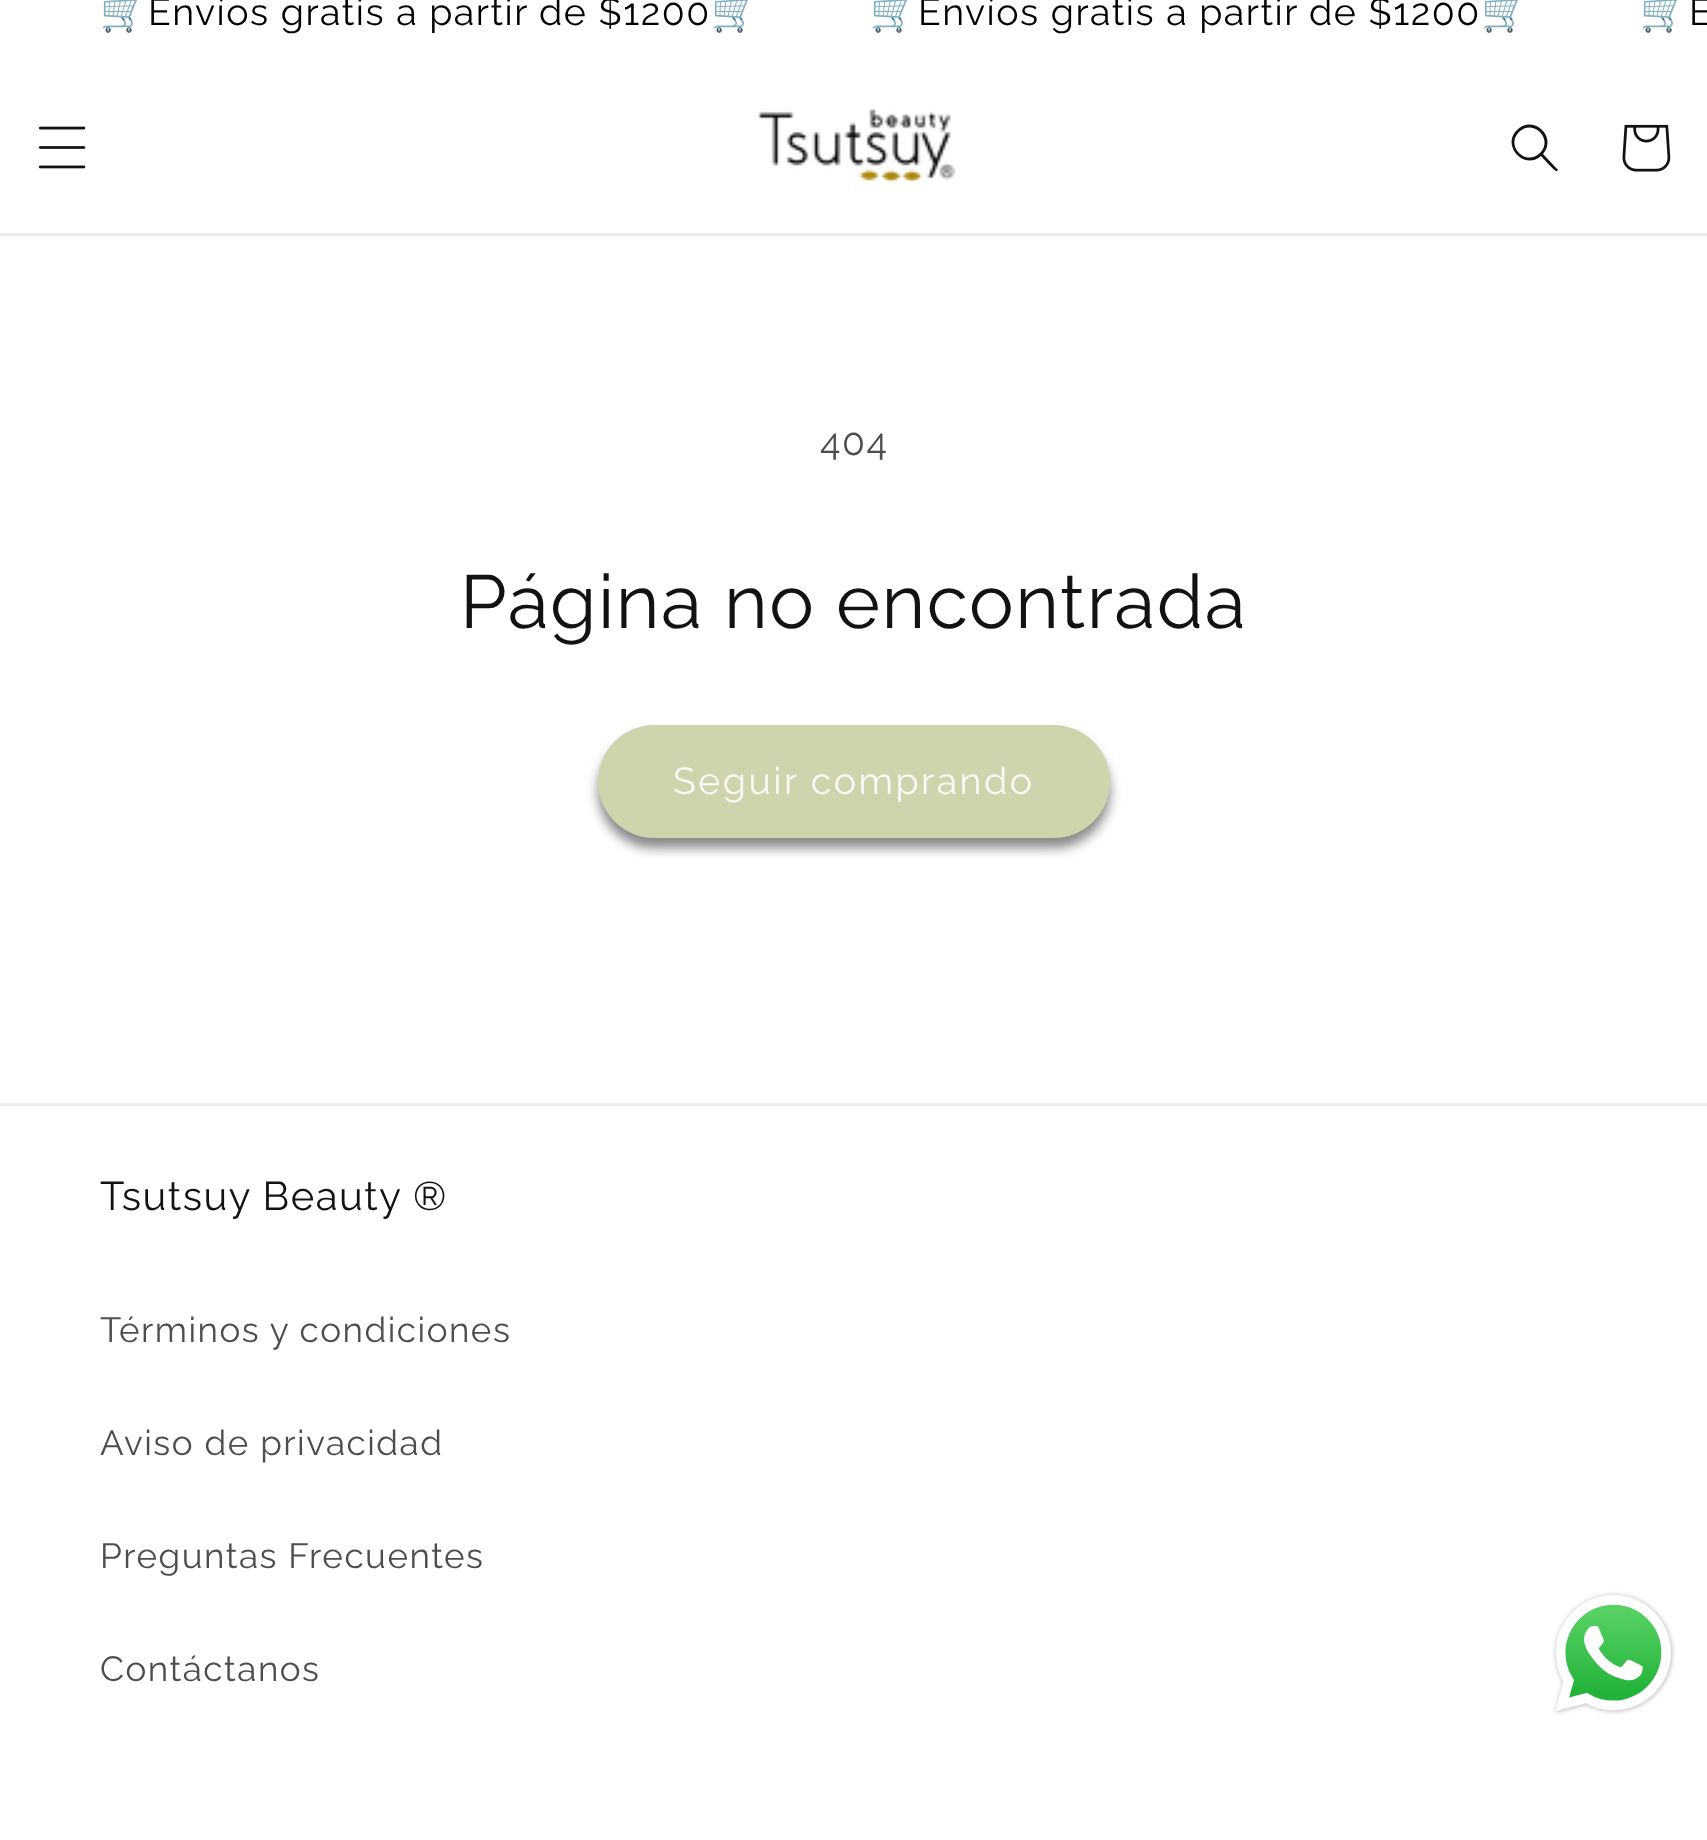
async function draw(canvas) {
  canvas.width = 1707
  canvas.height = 1840
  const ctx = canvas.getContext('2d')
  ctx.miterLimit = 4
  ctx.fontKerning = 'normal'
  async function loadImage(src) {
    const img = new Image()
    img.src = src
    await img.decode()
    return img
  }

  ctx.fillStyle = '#fff'
  ctx.fillRect(0, 0, 1707, 1840)
  ctx.letterSpacing = '1.5px'
  ctx.font = '37.5px Noto Color Emoji'
  ctx.fillStyle = '#000'
  ctx.fillText('🛒', 100, 25)
  ctx.font = '37.5px Raleway'
  ctx.fillText('Envíos gratis a partir de $1200', 148, 25)
  ctx.font = '37.5px Noto Color Emoji'
  ctx.fillText('🛒', 711, 25)
  ctx.fillText('🛒', 870, 25)
  ctx.font = '37.5px Raleway'
  ctx.fillText('Envíos gratis a partir de $1200', 918, 25)
  ctx.font = '37.5px Noto Color Emoji'
  ctx.fillText('🛒', 1481, 25)
  ctx.fillText('🛒', 1640, 25)
  ctx.font = '37.5px Raleway'
  ctx.fillText('E', 1689, 25)
  ctx.fillStyle = '#ececec'
  ctx.fillRect(0, 233, 1707, 3)
  ctx.drawImage(await loadImage('image0.png'), 38, 126, 48, 43)
  ctx.drawImage(await loadImage('image1.png'), 757, 108, 198, 75)
  ctx.fillStyle = '#121212'
  ctx.beginPath()
  ctx.moveTo(1540, 153)
  ctx.bezierCurveTo(1526, 167, 1505, 146, 1519, 132)
  ctx.bezierCurveTo(1533, 118, 1554, 139, 1540, 153)
  ctx.closePath()
  ctx.moveTo(1541, 156)
  ctx.bezierCurveTo(1524, 171, 1501, 145, 1517, 130)
  ctx.bezierCurveTo(1533, 114, 1558, 137, 1543, 154)
  ctx.lineTo(1558, 170)
  ctx.lineTo(1557, 171)
  ctx.bezierCurveTo(1555, 172, 1543, 158, 1541, 156)
  ctx.closePath()
  ctx.fill('evenodd')
  ctx.drawImage(await loadImage('image2.png'), 1622, 124, 49, 48)
  ctx.fillStyle = '#4d4d4d'
  ctx.fillText('404', 820, 455)
  ctx.font = '75px Raleway'
  ctx.fillStyle = '#121212'
  ctx.fillText('Página no encontrada', 460, 628)
  ctx.fillStyle = '#12121280'
  ctx.filter = 'blur(6px)'
  ctx.beginPath()
  ctx.roundRect(598, 735, 512, 113, 56.5)
  ctx.fill()
  ctx.filter = 'none'
  ctx.fillStyle = '#cfd4ac'
  ctx.beginPath()
  ctx.roundRect(598, 725, 512, 113, 56.5)
  ctx.fill()
  ctx.letterSpacing = '2.5px'
  ctx.font = '37.5px Raleway'
  ctx.fillStyle = '#fafafa'
  ctx.fillText('Seguir comprando', 673, 794)
  ctx.fillStyle = '#ececec'
  ctx.fillRect(0, 1103, 1707, 3)
  ctx.letterSpacing = '1.5px'
  ctx.font = '40px Raleway'
  ctx.fillStyle = '#121212'
  ctx.fillText('Tsutsuy Beauty ®', 100, 1210)
  ctx.font = '35px Raleway'
  ctx.fillStyle = '#4d4d4d'
  ctx.fillText('Términos y condiciones', 100, 1342)
  ctx.fillText('Aviso de privacidad', 100, 1455)
  ctx.fillText('Preguntas Frecuentes', 100, 1568)
  ctx.fillText('Contáctanos', 100, 1681)
  ctx.drawImage(await loadImage('image3.png'), 1552, 1591, 124, 124)
}

draw(document.querySelector('canvas'))
